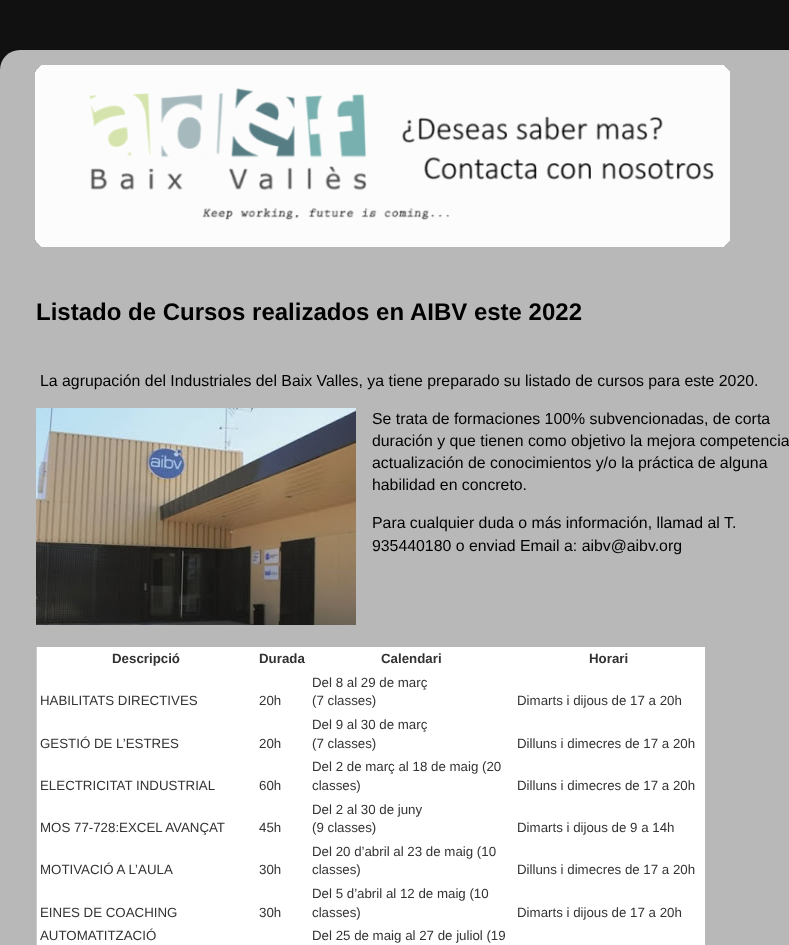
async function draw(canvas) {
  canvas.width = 789
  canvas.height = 945
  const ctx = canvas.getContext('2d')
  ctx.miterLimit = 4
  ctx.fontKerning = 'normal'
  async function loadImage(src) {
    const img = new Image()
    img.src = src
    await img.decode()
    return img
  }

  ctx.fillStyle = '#111'
  ctx.fillRect(0, 0, 789, 945)
  ctx.drawImage(await loadImage('image0.png'), 0, 50, 789, 895)
  ctx.drawImage(await loadImage('image1.png'), 35, 65, 695, 182)
  ctx.font = 'bold 24px Liberation Sans'
  ctx.fillStyle = '#000'
  ctx.fillText('Listado de Cursos realizados en AIBV este 2022', 36, 320)
  ctx.font = '15.85px Liberation Sans'
  ctx.fillText('La agrupación del Industriales del Baix Valles, ya tiene preparado su listado de cursos para este 2020.', 40, 386)
  ctx.drawImage(await loadImage('image2.png'), 36, 408, 320, 217)
  ctx.fillText('Se trata de formaciones 100% subvencionadas, de corta', 372, 424)
  ctx.fillText('duración y que tienen como objetivo la mejora competencia', 372, 446)
  ctx.fillText('actualización de conocimientos y/o la práctica de alguna', 372, 468)
  ctx.fillText('habilidad en concreto.', 372, 490)
  ctx.fillText('Para cualquier duda o más información, llamad al T.', 372, 528)
  ctx.fillText('935440180 o enviad Email a: aibv@aibv.org', 372, 551)
  ctx.fillStyle = '#fff'
  ctx.fillRect(37, 647, 668, 24)
  ctx.font = 'bold 13.3px Liberation Sans'
  ctx.fillStyle = '#333'
  ctx.fillText('Descripció', 112, 663)
  ctx.fillText('Durada', 259, 663)
  ctx.fillText('Calendari', 381, 663)
  ctx.fillText('Horari', 589, 663)
  ctx.fillStyle = '#fff'
  ctx.fillRect(37, 671, 668, 42)
  ctx.font = '13.3px Liberation Sans'
  ctx.fillStyle = '#333'
  ctx.fillText('HABILITATS DIRECTIVES', 40, 705)
  ctx.fillText('20h', 259, 705)
  ctx.fillText('Del 8 al 29 de març', 312, 687)
  ctx.fillText('(7 classes)', 312, 705)
  ctx.fillText('Dimarts i dijous de 17 a 20h', 517, 705)
  ctx.fillStyle = '#fff'
  ctx.fillRect(37, 713, 668, 43)
  ctx.fillStyle = '#333'
  ctx.fillText('GESTIÓ DE L’ESTRES', 40, 748)
  ctx.fillText('20h', 259, 748)
  ctx.fillText('Del 9 al 30 de març', 312, 729)
  ctx.fillText('(7 classes)', 312, 748)
  ctx.fillText('Dilluns i dimecres de 17 a 20h', 517, 748)
  ctx.fillStyle = '#fff'
  ctx.fillRect(37, 756, 668, 42)
  ctx.fillStyle = '#333'
  ctx.fillText('ELECTRICITAT INDUSTRIAL', 40, 790)
  ctx.fillText('60h', 259, 790)
  ctx.fillText('Del 2 de març al 18 de maig (20', 312, 771)
  ctx.fillText('classes)', 312, 790)
  ctx.fillText('Dilluns i dimecres de 17 a 20h', 517, 790)
  ctx.fillStyle = '#fff'
  ctx.fillRect(37, 798, 668, 42)
  ctx.fillStyle = '#333'
  ctx.fillText('MOS 77-728:EXCEL AVANÇAT', 40, 832)
  ctx.fillText('45h', 259, 832)
  ctx.fillText('Del 2 al 30 de juny', 312, 814)
  ctx.fillText('(9 classes)', 312, 832)
  ctx.fillText('Dimarts i dijous de 9 a 14h', 517, 832)
  ctx.fillStyle = '#fff'
  ctx.fillRect(37, 840, 668, 43)
  ctx.fillStyle = '#333'
  ctx.fillText('MOTIVACIÓ A L’AULA', 40, 874)
  ctx.fillText('30h', 259, 874)
  ctx.fillText('Del 20 d’abril al 23 de maig (10', 312, 856)
  ctx.fillText('classes)', 312, 874)
  ctx.fillText('Dilluns i dimecres de 17 a 20h', 517, 874)
  ctx.fillStyle = '#fff'
  ctx.fillRect(37, 883, 668, 42)
  ctx.fillStyle = '#333'
  ctx.fillText('EINES DE COACHING', 40, 917)
  ctx.fillText('30h', 259, 917)
  ctx.fillText('Del 5 d’abril al 12 de maig (10', 312, 898)
  ctx.fillText('classes)', 312, 917)
  ctx.fillText('Dimarts i dijous de 17 a 20h', 517, 917)
  ctx.fillStyle = '#ccc'
  ctx.fillRect(36, 647, 1, 298)
  ctx.fillStyle = '#fff'
  ctx.fillRect(37, 925, 668, 20)
  ctx.fillStyle = '#333'
  ctx.fillText('AUTOMATITZACIÓ', 40, 940)
  ctx.fillText('Del 25 de maig al 27 de juliol (19', 312, 940)
}

draw(document.querySelector('canvas'))
